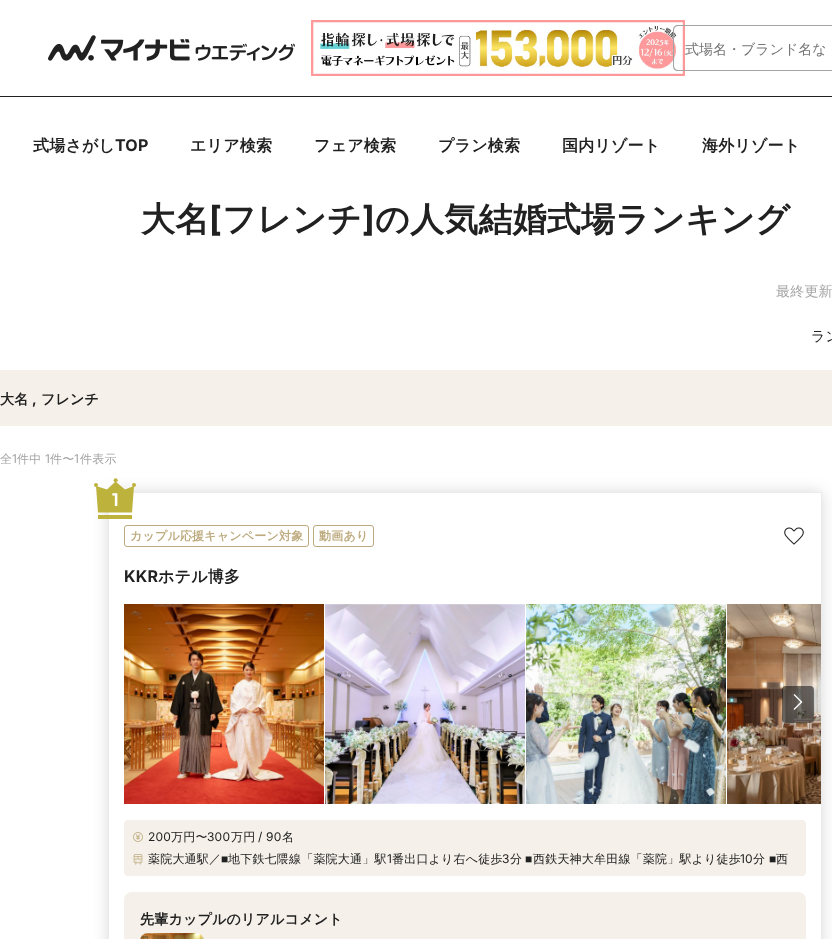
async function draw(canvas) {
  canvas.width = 832
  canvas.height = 939
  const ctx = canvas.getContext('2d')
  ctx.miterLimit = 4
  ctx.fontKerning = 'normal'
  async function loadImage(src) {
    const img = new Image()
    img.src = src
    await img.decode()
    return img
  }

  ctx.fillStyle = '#fff'
  ctx.fillRect(0, 0, 832, 939)
  ctx.fillStyle = '#212121'
  ctx.fillRect(0, 96, 832, 1)
  ctx.drawImage(await loadImage('image0.png'), 48, 35, 247, 26)
  ctx.drawImage(await loadImage('image1.png'), 311, 20, 374, 56)
  ctx.fillStyle = '#a4a4a4'
  ctx.beginPath()
  ctx.moveTo(678, 25)
  ctx.lineTo(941, 25)
  ctx.lineTo(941, 71)
  ctx.lineTo(678, 71)
  ctx.bezierCurveTo(675, 71, 673, 69, 673, 66)
  ctx.lineTo(673, 30)
  ctx.bezierCurveTo(673, 27, 675, 25, 678, 25)
  ctx.closePath()
  ctx.moveTo(678, 26)
  ctx.lineTo(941, 26)
  ctx.lineTo(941, 70)
  ctx.lineTo(678, 70)
  ctx.bezierCurveTo(676, 70, 674, 68, 674, 66)
  ctx.lineTo(674, 30)
  ctx.bezierCurveTo(674, 28, 676, 26, 678, 26)
  ctx.closePath()
  ctx.fill('evenodd')
  ctx.font = '500 14px WenQuanYi Zen Hei'
  ctx.fillStyle = '#757575'
  ctx.fillText('式場名・ブランド名な', 685, 54)
  ctx.letterSpacing = '0.2px'
  ctx.font = 'bold 16px WenQuanYi Zen Hei'
  ctx.fillStyle = '#212121'
  ctx.fillText('式場さがし', 33, 151)
  ctx.font = 'bold 16px Inter'
  ctx.fillText('TOP', 115, 151)
  ctx.font = 'bold 16px WenQuanYi Zen Hei'
  ctx.fillText('エリア検索', 190, 151)
  ctx.fillText('フェア検索', 314, 151)
  ctx.fillText('プラン検索', 438, 151)
  ctx.fillText('国内リゾート', 562, 151)
  ctx.fillText('海外リゾート', 702, 151)
  ctx.font = 'bold 34px WenQuanYi Zen Hei'
  ctx.fillText('大名', 141, 231)
  ctx.font = 'bold 34px Inter'
  ctx.fillText('[', 209, 231)
  ctx.font = 'bold 34px WenQuanYi Zen Hei'
  ctx.fillText('フレンチ', 222, 231)
  ctx.font = 'bold 34px Inter'
  ctx.fillText(']', 362, 231)
  ctx.font = 'bold 34px WenQuanYi Zen Hei'
  ctx.fillText('の人気結婚式場ランキング', 375, 231)
  ctx.font = '500 14px WenQuanYi Zen Hei'
  ctx.fillStyle = '#a4a4a4'
  ctx.fillText('最終更新', 776, 296)
  ctx.fillStyle = '#212121'
  ctx.fillText('ラン', 811, 341)
  ctx.fillStyle = '#f5f1ea'
  ctx.fillRect(0, 370, 832, 56)
  ctx.font = 'bold 14px WenQuanYi Zen Hei'
  ctx.fillStyle = '#212121'
  ctx.fillText('大名', 0, 404)
  ctx.font = 'bold 14px Inter'
  ctx.fillText(',', 32, 404)
  ctx.font = 'bold 14px WenQuanYi Zen Hei'
  ctx.fillText('フレンチ', 41, 404)
  ctx.font = '500 12px WenQuanYi Zen Hei'
  ctx.fillStyle = '#a4a4a4'
  ctx.fillText('全', 0, 463)
  ctx.font = '12px Inter'
  ctx.fillText('1', 12, 463)
  ctx.font = '500 12px WenQuanYi Zen Hei'
  ctx.fillText('件中', 17, 463)
  ctx.font = '12px Inter'
  ctx.fillText('1', 45, 463)
  ctx.font = '500 12px WenQuanYi Zen Hei'
  ctx.fillText('件〜', 50, 463)
  ctx.font = '12px Inter'
  ctx.fillText('1', 74, 463)
  ctx.font = '500 12px WenQuanYi Zen Hei'
  ctx.fillText('件表示', 80, 463)
  ctx.save()
  ctx.beginPath()
  ctx.moveTo(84, 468)
  ctx.lineTo(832, 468)
  ctx.lineTo(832, 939)
  ctx.lineTo(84, 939)
  ctx.closePath()
  ctx.moveTo(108, 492)
  ctx.lineTo(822, 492)
  ctx.lineTo(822, 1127)
  ctx.lineTo(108, 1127)
  ctx.closePath()
  ctx.clip('evenodd')
  ctx.fillStyle = '#00000026'
  ctx.filter = 'blur(7.5px)'
  ctx.beginPath()
  ctx.rect(108, 492, 714, 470)
  ctx.fill()
  ctx.filter = 'none'
  ctx.restore()
  ctx.strokeStyle = '#ebebeb'
  ctx.strokeRect(108.5, 492.5, 713, 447)
  ctx.fillStyle = '#bdb23c'
  ctx.beginPath()
  ctx.moveTo(132, 512.5)
  ctx.lineTo(98, 512.5)
  ctx.lineTo(96, 486)
  ctx.lineTo(107, 489.5)
  ctx.lineTo(115.5, 481.5)
  ctx.lineTo(125, 489.5)
  ctx.lineTo(134, 486)
  ctx.closePath()
  ctx.fill()
  ctx.fillRect(98, 515, 34, 4)
  ctx.beginPath()
  ctx.arc(115.7, 480.3, 2, 0, 2 * Math.PI)
  ctx.fill()
  ctx.beginPath()
  ctx.arc(96, 485, 2, 0, 2 * Math.PI)
  ctx.fill()
  ctx.beginPath()
  ctx.arc(134, 485, 2, 0, 2 * Math.PI)
  ctx.fill()
  ctx.font = '100 18px Outfit'
  ctx.fillStyle = '#fff'
  ctx.fillText('1', 112, 506)
  ctx.beginPath()
  ctx.roundRect(124.5, 525.5, 184, 21, 2.5)
  ctx.strokeStyle = '#bdaa7d'
  ctx.stroke()
  ctx.font = 'bold 12px WenQuanYi Zen Hei'
  ctx.fillStyle = '#bdaa7d'
  ctx.fillText('カップル応援キャンペーン対象', 130, 540)
  ctx.beginPath()
  ctx.roundRect(313.5, 525.5, 60, 21, 2.5)
  ctx.stroke()
  ctx.fillText('動画あり', 319, 540)
  ctx.drawImage(await loadImage('image2.png'), 784, 527, 20, 18)
  ctx.font = 'bold 16px Inter'
  ctx.fillStyle = '#212121'
  ctx.fillText('KKR', 124, 582)
  ctx.font = 'bold 16px WenQuanYi Zen Hei'
  ctx.fillText('ホテル博多', 158, 582)
  ctx.drawImage(await loadImage('image3.png'), 124, 604, 200, 200)
  ctx.drawImage(await loadImage('image4.png'), 325, 604, 200, 200)
  ctx.drawImage(await loadImage('image5.png'), 526, 604, 200, 200)
  ctx.drawImage(await loadImage('image6.png'), 727, 604, 94, 200)
  ctx.fillStyle = '#00000080'
  ctx.beginPath()
  ctx.roundRect(782, 686, 32, 37, 4)
  ctx.fill()
  ctx.drawImage(await loadImage('image7.png'), 793, 694, 10, 16)
  ctx.fillStyle = '#f5f1ea'
  ctx.beginPath()
  ctx.roundRect(124, 820, 682, 56, 4)
  ctx.fill()
  ctx.drawImage(await loadImage('image8.png'), 133, 832, 10, 10)
  ctx.font = '12px Inter'
  ctx.fillStyle = '#212121'
  ctx.fillText('200', 148, 841)
  ctx.font = '500 12px WenQuanYi Zen Hei'
  ctx.fillText('万円〜', 171, 841)
  ctx.font = '12px Inter'
  ctx.fillText('300', 207, 841)
  ctx.font = '500 12px WenQuanYi Zen Hei'
  ctx.fillText('万円', 231, 841)
  ctx.font = '12px Inter'
  ctx.fillText('/ 90', 258, 841)
  ctx.font = '500 12px WenQuanYi Zen Hei'
  ctx.fillText('名', 282, 841)
  ctx.drawImage(await loadImage('image9.png'), 133, 854, 10, 11)
  ctx.fillText('薬院大通駅／', 148, 863)
  ctx.font = '12px Liberation Sans'
  ctx.fillText('■', 221, 863)
  ctx.font = '500 12px WenQuanYi Zen Hei'
  ctx.fillText('地下鉄七隈線「薬院大通」駅', 228, 863)
  ctx.font = '12px Inter'
  ctx.fillText('1', 387, 863)
  ctx.font = '500 12px WenQuanYi Zen Hei'
  ctx.fillText('番出口より右へ徒歩', 392, 863)
  ctx.font = '12px Inter'
  ctx.fillText('3', 502, 863)
  ctx.font = '500 12px WenQuanYi Zen Hei'
  ctx.fillText('分', 510, 863)
  ctx.font = '12px Liberation Sans'
  ctx.fillText('■', 525, 863)
  ctx.font = '500 12px WenQuanYi Zen Hei'
  ctx.fillText('西鉄天神大牟田線「薬院」駅より徒歩', 533, 863)
  ctx.font = '12px Inter'
  ctx.fillText('10', 740, 863)
  ctx.font = '500 12px WenQuanYi Zen Hei'
  ctx.fillText('分', 753, 863)
  ctx.font = '12px Liberation Sans'
  ctx.fillText('■', 769, 863)
  ctx.font = '500 12px WenQuanYi Zen Hei'
  ctx.fillText('西', 776, 863)
  ctx.fillStyle = '#f5f1ea'
  ctx.beginPath()
  ctx.roundRect(124, 892, 682, 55, 8)
  ctx.fill()
  ctx.font = 'bold 14px WenQuanYi Zen Hei'
  ctx.fillStyle = '#212121'
  ctx.fillText('先輩カップルのリアルコメント', 140, 924)
  ctx.drawImage(await loadImage('image10.png'), 140, 933, 64, 6)
}

draw(document.querySelector('canvas'))
